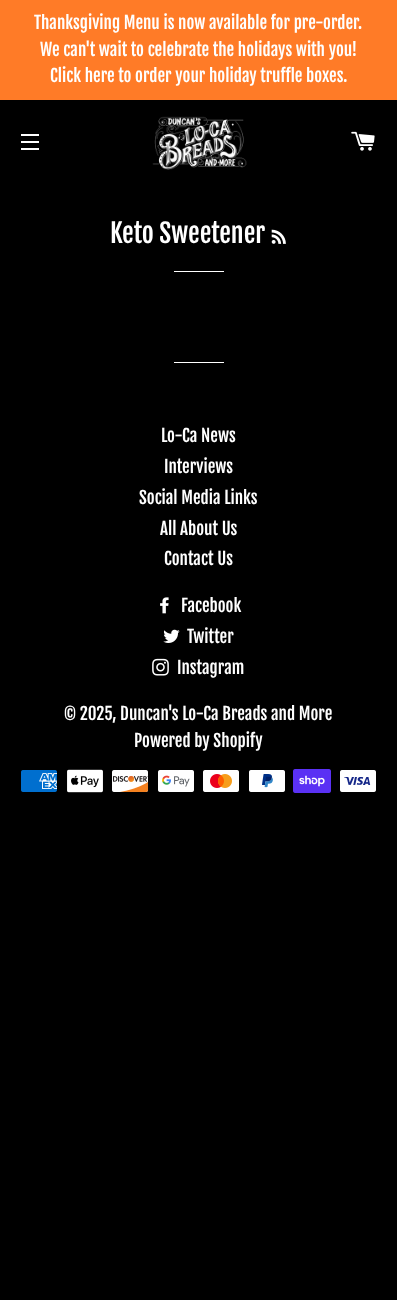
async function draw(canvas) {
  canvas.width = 397
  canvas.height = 1300
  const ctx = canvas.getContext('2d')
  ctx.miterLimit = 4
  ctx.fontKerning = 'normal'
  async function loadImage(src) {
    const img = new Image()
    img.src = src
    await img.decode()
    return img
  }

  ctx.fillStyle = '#000'
  ctx.fillRect(0, 0, 397, 1300)
  ctx.fillStyle = '#ff7b27'
  ctx.fillRect(0, 0, 397, 100)
  ctx.font = '17px Fjalla One'
  ctx.fillStyle = '#fff'
  ctx.fillText('Thanksgiving Menu is now available for pre-order.', 34, 29)
  ctx.fillText('We can\'t wait to celebrate the holidays with you!', 40, 56)
  ctx.fillText('Click here to order your holiday truffle boxes.', 50, 82)
  ctx.fillRect(21, 134, 18, 2)
  ctx.fillRect(21, 141, 18, 2)
  ctx.fillRect(21, 148, 18, 2)
  ctx.drawImage(await loadImage('image0.png'), 152, 116, 95, 54)
  ctx.drawImage(await loadImage('image1.png'), 351, 131, 24, 20)
  ctx.font = '26px Fjalla One'
  ctx.fillText('Keto Sweetener', 110, 243)
  ctx.drawImage(await loadImage('image2.png'), 271, 229, 15, 15)
  ctx.fillRect(174, 271, 50, 1)
  ctx.fillRect(174, 362, 50, 1)
  ctx.font = '17px Fjalla One'
  ctx.fillText('Lo-Ca News', 161, 442)
  ctx.fillText('Interviews', 164, 473)
  ctx.fillText('Social Media Links', 139, 504)
  ctx.fillText('All About Us', 160, 535)
  ctx.fillText('Contact Us', 164, 565)
  ctx.drawImage(await loadImage('image3.png'), 160, 597, 9, 17)
  ctx.fillText('Facebook', 181, 612)
  ctx.drawImage(await loadImage('image4.png'), 163, 629, 17, 14)
  ctx.fillText('Twitter', 187, 643)
  ctx.drawImage(await loadImage('image5.png'), 152, 658, 17, 18)
  ctx.fillText('Instagram', 177, 674)
  ctx.fillText('© 2025, Duncan\'s Lo-Ca Breads and More', 64, 720)
  ctx.fillText('Powered by Shopify', 134, 747)
  ctx.drawImage(await loadImage('image6.png'), 21, 770, 36, 22)
  ctx.drawImage(await loadImage('image7.png'), 67, 769, 36, 24)
  ctx.drawImage(await loadImage('image8.png'), 112, 770, 37, 22)
  ctx.drawImage(await loadImage('image9.png'), 158, 770, 36, 22)
  ctx.drawImage(await loadImage('image10.png'), 203, 770, 36, 22)
  ctx.drawImage(await loadImage('image11.png'), 249, 770, 36, 22)
  ctx.drawImage(await loadImage('image12.png'), 293, 769, 38, 24)
  ctx.drawImage(await loadImage('image13.png'), 340, 770, 36, 22)
}

draw(document.querySelector('canvas'))
